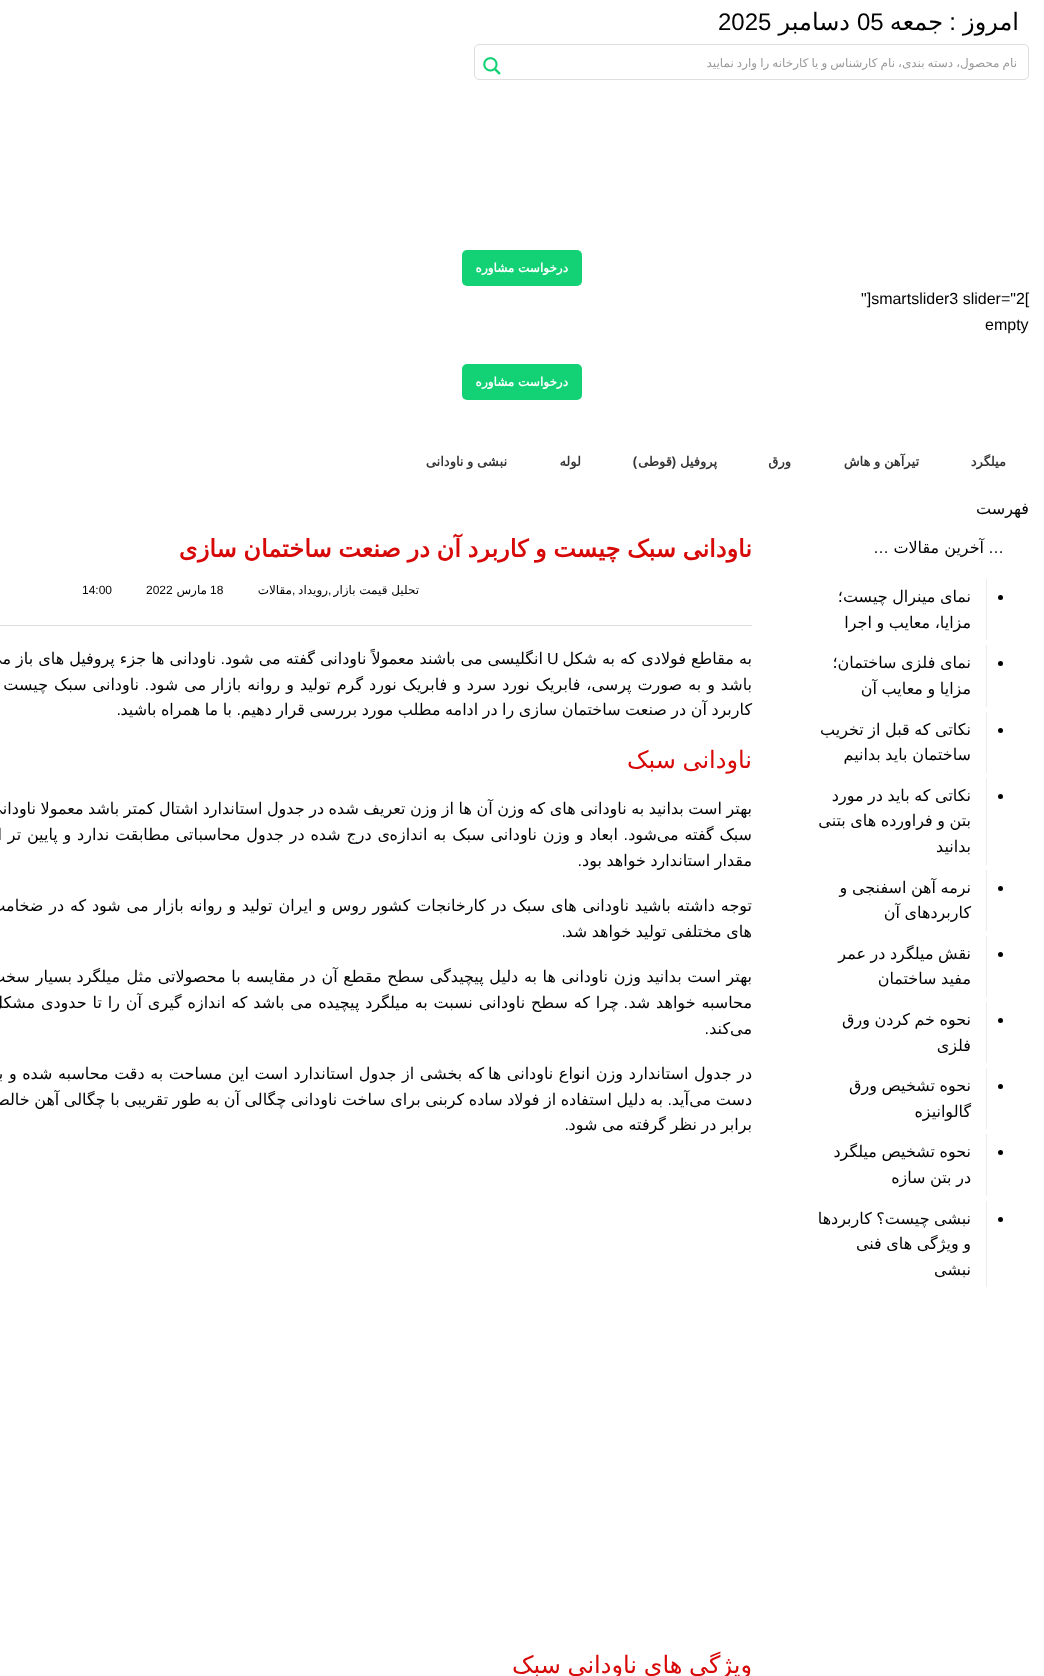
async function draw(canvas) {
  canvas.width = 1044
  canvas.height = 1676
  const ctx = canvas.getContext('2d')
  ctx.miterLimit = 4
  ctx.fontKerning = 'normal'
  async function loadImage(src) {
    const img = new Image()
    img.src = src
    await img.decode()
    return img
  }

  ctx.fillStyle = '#fff'
  ctx.fillRect(0, 0, 1044, 1676)
  ctx.direction = 'rtl'
  ctx.font = '24px DejaVu Sans'
  ctx.fillStyle = '#000'
  ctx.fillText('امروز', 1019, 30)
  ctx.font = '24px Liberation Sans'
  ctx.fillText(':', 956, 30)
  ctx.font = '24px DejaVu Sans'
  ctx.fillText('جمعه', 943, 30)
  ctx.direction = 'ltr'
  ctx.font = '24px Liberation Sans'
  ctx.fillText('05', 857, 30)
  ctx.direction = 'rtl'
  ctx.font = '24px DejaVu Sans'
  ctx.fillText('دسامبر', 850, 30)
  ctx.direction = 'ltr'
  ctx.font = '24px Liberation Sans'
  ctx.fillText('2025', 718, 30)
  ctx.beginPath()
  ctx.roundRect(474.5, 44.5, 554, 35, 4.5)
  ctx.strokeStyle = '#dedede'
  ctx.stroke()
  ctx.wordSpacing = '-0.75px'
  ctx.direction = 'rtl'
  ctx.font = '12px DejaVu Sans'
  ctx.fillStyle = '#9a9a9a'
  ctx.fillText('نام محصول، دسته بندی، نام کارشناس و یا کارخانه را وارد نمایید', 1017, 67)
  ctx.drawImage(await loadImage('image0.png'), 483, 57, 18, 18)
  ctx.fillStyle = '#13d276'
  ctx.beginPath()
  ctx.roundRect(462, 250, 120, 36, 5)
  ctx.fill()
  ctx.wordSpacing = '0px'
  ctx.font = 'bold 12px DejaVu Sans'
  ctx.fillStyle = '#fff'
  ctx.fillText('درخواست مشاوره', 568, 272)
  ctx.direction = 'ltr'
  ctx.font = '16px Liberation Sans'
  ctx.fillStyle = '#000'
  ctx.fillText('"]smartslider3 slider="2[', 861, 304)
  ctx.fillText('empty', 985, 330)
  ctx.fillStyle = '#13d276'
  ctx.beginPath()
  ctx.roundRect(462, 364, 120, 36, 5)
  ctx.fill()
  ctx.direction = 'rtl'
  ctx.font = 'bold 12px DejaVu Sans'
  ctx.fillStyle = '#fff'
  ctx.fillText('درخواست مشاوره', 568, 386)
  ctx.font = 'bold 13px DejaVu Sans'
  ctx.fillStyle = '#333'
  ctx.fillText('میلگرد', 1006, 466)
  ctx.wordSpacing = '-0.5px'
  ctx.fillText('تیرآهن و هاش', 919, 466)
  ctx.wordSpacing = '0px'
  ctx.fillText('ورق', 791, 466)
  ctx.fillText('پروفیل', 717, 466)
  ctx.font = 'bold 13px Liberation Sans'
  ctx.fillText('(', 676, 466)
  ctx.font = 'bold 13px DejaVu Sans'
  ctx.fillText('قوطی', 672, 466)
  ctx.font = 'bold 13px Liberation Sans'
  ctx.fillText(')', 637, 466)
  ctx.font = 'bold 13px DejaVu Sans'
  ctx.fillText('لوله', 581, 466)
  ctx.wordSpacing = '-0.5px'
  ctx.fillText('نبشی و ناودانی', 507, 466)
  ctx.wordSpacing = '0px'
  ctx.font = '16px DejaVu Sans'
  ctx.fillStyle = '#000'
  ctx.fillText('فهرست', 1029, 514)
  ctx.font = '16px Liberation Sans'
  ctx.fillText('…', 1004, 553)
  ctx.font = '16px DejaVu Sans'
  ctx.fillText('آخرین مقالات', 984, 553)
  ctx.font = '16px Liberation Sans'
  ctx.fillText('…', 889, 553)
  ctx.fillStyle = '#ececec'
  ctx.fillRect(986, 579, 1, 61)
  ctx.fillStyle = '#000'
  ctx.beginPath()
  ctx.arc(1000.5, 597.5, 2.5, 0, 2 * Math.PI)
  ctx.fill()
  ctx.wordSpacing = '-0.5px'
  ctx.font = '16px DejaVu Sans'
  ctx.fillText('نمای مینرال چیست؛', 971, 602)
  ctx.fillText('مزایا، معایب و اجرا', 971, 628)
  ctx.fillStyle = '#ececec'
  ctx.fillRect(986, 645, 1, 62)
  ctx.fillStyle = '#000'
  ctx.beginPath()
  ctx.arc(1000.5, 663.5, 2.5, 0, 2 * Math.PI)
  ctx.fill()
  ctx.fillText('نمای فلزی ساختمان؛', 971, 668)
  ctx.fillText('مزایا و معایب آن', 971, 694)
  ctx.fillStyle = '#ececec'
  ctx.fillRect(986, 712, 1, 61)
  ctx.fillStyle = '#000'
  ctx.beginPath()
  ctx.arc(1000.5, 730.5, 2.5, 0, 2 * Math.PI)
  ctx.fill()
  ctx.fillText('نکاتی که قبل از تخریب', 971, 735)
  ctx.fillText('ساختمان باید بدانیم', 971, 760)
  ctx.fillStyle = '#ececec'
  ctx.fillRect(986, 778, 1, 87)
  ctx.fillStyle = '#000'
  ctx.beginPath()
  ctx.arc(1000.5, 796.5, 2.5, 0, 2 * Math.PI)
  ctx.fill()
  ctx.fillText('نکاتی که باید در مورد', 971, 801)
  ctx.fillText('بتن و فراورده های بتنی', 971, 826)
  ctx.wordSpacing = '0px'
  ctx.fillText('بدانید', 971, 852)
  ctx.fillStyle = '#ececec'
  ctx.fillRect(986, 870, 1, 61)
  ctx.fillStyle = '#000'
  ctx.beginPath()
  ctx.arc(1000.5, 888.5, 2.5, 0, 2 * Math.PI)
  ctx.fill()
  ctx.wordSpacing = '-0.5px'
  ctx.fillText('نرمه آهن اسفنجی و', 971, 893)
  ctx.fillText('کاربردهای آن', 971, 918)
  ctx.fillStyle = '#ececec'
  ctx.fillRect(986, 936, 1, 61)
  ctx.fillStyle = '#000'
  ctx.beginPath()
  ctx.arc(1000.5, 954.5, 2.5, 0, 2 * Math.PI)
  ctx.fill()
  ctx.fillText('نقش میلگرد در عمر', 971, 959)
  ctx.fillText('مفید ساختمان', 971, 984)
  ctx.fillStyle = '#ececec'
  ctx.fillRect(986, 1002, 1, 61)
  ctx.fillStyle = '#000'
  ctx.beginPath()
  ctx.arc(1000.5, 1020.5, 2.5, 0, 2 * Math.PI)
  ctx.fill()
  ctx.fillText('نحوه خم کردن ورق', 971, 1025)
  ctx.wordSpacing = '0px'
  ctx.fillText('فلزی', 971, 1051)
  ctx.fillStyle = '#ececec'
  ctx.fillRect(986, 1068, 1, 61)
  ctx.fillStyle = '#000'
  ctx.beginPath()
  ctx.arc(1000.5, 1086.5, 2.5, 0, 2 * Math.PI)
  ctx.fill()
  ctx.wordSpacing = '-0.5px'
  ctx.fillText('نحوه تشخیص ورق', 971, 1091)
  ctx.wordSpacing = '0px'
  ctx.fillText('گالوانیزه', 971, 1117)
  ctx.fillStyle = '#ececec'
  ctx.fillRect(986, 1134, 1, 62)
  ctx.fillStyle = '#000'
  ctx.beginPath()
  ctx.arc(1000.5, 1152.5, 2.5, 0, 2 * Math.PI)
  ctx.fill()
  ctx.wordSpacing = '-0.5px'
  ctx.fillText('نحوه تشخیص میلگرد', 971, 1157)
  ctx.fillText('در بتن سازه', 971, 1183)
  ctx.fillStyle = '#ececec'
  ctx.fillRect(986, 1201, 1, 86)
  ctx.fillStyle = '#000'
  ctx.beginPath()
  ctx.arc(1000.5, 1219.5, 2.5, 0, 2 * Math.PI)
  ctx.fill()
  ctx.fillText('نبشی چیست؟ کاربردها', 971, 1224)
  ctx.fillText('و ویژگی های فنی', 971, 1249)
  ctx.wordSpacing = '0px'
  ctx.fillText('نبشی', 971, 1275)
  ctx.wordSpacing = '-1px'
  ctx.font = 'bold 24px DejaVu Sans'
  ctx.fillStyle = '#d70808'
  ctx.fillText('ناودانی سبک چیست و کاربرد آن در صنعت ساختمان سازی', 752, 557)
  ctx.fillStyle = '#ddd'
  ctx.fillRect(0, 625, 752, 1)
  ctx.wordSpacing = '0px'
  ctx.font = '12px DejaVu Sans'
  ctx.fillStyle = '#000'
  ctx.fillText('تحلیل قیمت بازار', 419, 594)
  ctx.direction = 'ltr'
  ctx.font = '12px Liberation Sans'
  ctx.fillText(',', 328, 594)
  ctx.direction = 'rtl'
  ctx.font = '12px DejaVu Sans'
  ctx.fillText('رویداد', 328, 594)
  ctx.direction = 'ltr'
  ctx.font = '12px Liberation Sans'
  ctx.fillText(',', 292, 594)
  ctx.direction = 'rtl'
  ctx.font = '12px DejaVu Sans'
  ctx.fillText('مقالات', 292, 594)
  ctx.direction = 'ltr'
  ctx.font = '12px Liberation Sans'
  ctx.fillText('18', 210, 594)
  ctx.direction = 'rtl'
  ctx.font = '12px DejaVu Sans'
  ctx.fillText('مارس', 207, 594)
  ctx.direction = 'ltr'
  ctx.font = '12px Liberation Sans'
  ctx.fillText('2022', 146, 594)
  ctx.fillText('14:00', 82, 594)
  ctx.direction = 'rtl'
  ctx.font = '16px DejaVu Sans'
  ctx.fillText('به مقاطع فولادی که به شکل', 752, 664)
  ctx.direction = 'ltr'
  ctx.font = '16px Liberation Sans'
  ctx.fillText('U', 547, 664)
  ctx.direction = 'rtl'
  ctx.font = '16px DejaVu Sans'
  ctx.fillText('انگلیسی می باشند معمولاً ناودانی گفته می شود', 543, 664)
  ctx.font = '16px Liberation Sans'
  ctx.fillText('.', 225, 664)
  ctx.font = '16px DejaVu Sans'
  ctx.fillText('ناودانی ها جزء پروفیل های باز می', 216, 664)
  ctx.wordSpacing = '0.9px'
  ctx.fillText('باشد و به صورت پرسی، فابریک نورد سرد و فابریک نورد گرم تولید و روانه بازار می شود', 752, 690)
  ctx.wordSpacing = '0px'
  ctx.font = '16px Liberation Sans'
  ctx.fillText('.', 149, 690)
  ctx.wordSpacing = '0.9px'
  ctx.font = '16px DejaVu Sans'
  ctx.fillText('ناودانی سبک چیست و', 139, 690)
  ctx.wordSpacing = '-0.6px'
  ctx.fillText('کاربرد آن در صنعت ساختمان سازی را در ادامه مطلب مورد بررسی قرار دهیم', 752, 715)
  ctx.wordSpacing = '0px'
  ctx.font = '16px Liberation Sans'
  ctx.fillText('.', 241, 715)
  ctx.wordSpacing = '-0.6px'
  ctx.font = '16px DejaVu Sans'
  ctx.fillText('با ما همراه باشید', 232, 715)
  ctx.wordSpacing = '0px'
  ctx.font = '16px Liberation Sans'
  ctx.fillText('.', 121, 715)
  ctx.wordSpacing = '-1px'
  ctx.font = '24px DejaVu Sans'
  ctx.fillStyle = '#d70808'
  ctx.fillText('ناودانی سبک', 752, 768)
  ctx.wordSpacing = '-0.5px'
  ctx.font = '16px DejaVu Sans'
  ctx.fillStyle = '#000'
  ctx.fillText('بهتر است بدانید به ناودانی های که وزن آن ها از وزن تعریف شده در جدول استاندارد اشتال کمتر باشد معمولا ناودانی', 752, 814)
  ctx.wordSpacing = '0.75px'
  ctx.fillText('سبک گفته می', 752, 840)
  ctx.wordSpacing = '0px'
  ctx.fillText('شود', 657, 840)
  ctx.font = '16px Liberation Sans'
  ctx.fillText('.', 628, 840)
  ctx.wordSpacing = '0.75px'
  ctx.font = '16px DejaVu Sans'
  ctx.fillText('ابعاد و وزن ناودانی سبک به اندازه', 618, 840)
  ctx.fillText('ی درج شده در جدول محاسباتی مطابقت ندارد و پایین تر از', 390, 840)
  ctx.wordSpacing = '-0.5px'
  ctx.fillText('مقدار استاندارد خواهد بود', 752, 866)
  ctx.wordSpacing = '0px'
  ctx.font = '16px Liberation Sans'
  ctx.fillText('.', 582, 866)
  ctx.wordSpacing = '0.75px'
  ctx.font = '16px DejaVu Sans'
  ctx.fillText('توجه داشته باشید ناودانی های سبک در کارخانجات کشور روس و ایران تولید و روانه بازار می شود که در ضخامت', 752, 911)
  ctx.wordSpacing = '-0.5px'
  ctx.fillText('های مختلفی تولید خواهد شد', 752, 937)
  ctx.wordSpacing = '0px'
  ctx.font = '16px Liberation Sans'
  ctx.fillText('.', 566, 937)
  ctx.wordSpacing = '0.6px'
  ctx.font = '16px DejaVu Sans'
  ctx.fillText('بهتر است بدانید وزن ناودانی ها به دلیل پیچیدگی سطح مقطع آن در مقایسه با محصولاتی مثل', 752, 982)
  ctx.wordSpacing = '0px'
  ctx.fillText('میلگرد', 120, 982)
  ctx.wordSpacing = '1px'
  ctx.fillText('بسیار سخت', 72, 982)
  ctx.wordSpacing = '0.8px'
  ctx.fillText('محاسبه خواهد شد', 752, 1008)
  ctx.wordSpacing = '0px'
  ctx.font = '16px Liberation Sans'
  ctx.fillText('.', 628, 1008)
  ctx.wordSpacing = '0.8px'
  ctx.font = '16px DejaVu Sans'
  ctx.fillText('چرا که سطح ناودانی نسبت به میلگرد پیچیده می باشد که اندازه گیری آن را تا حدودی مشکل', 619, 1008)
  ctx.wordSpacing = '0px'
  ctx.fillText('می', 752, 1034)
  ctx.fillText('کند', 730, 1034)
  ctx.font = '16px Liberation Sans'
  ctx.fillText('.', 709, 1034)
  ctx.wordSpacing = '0.5px'
  ctx.font = '16px DejaVu Sans'
  ctx.fillText('در جدول استاندارد وزن', 752, 1079)
  ctx.fillText('انواع ناودانی ها', 590, 1079)
  ctx.fillText('که بخشی از جدول استاندارد است این مساحت به دقت محاسبه شده و به', 484, 1079)
  ctx.wordSpacing = '-0.5px'
  ctx.fillText('دست می', 752, 1105)
  ctx.wordSpacing = '0px'
  ctx.fillText('آید', 689, 1105)
  ctx.font = '16px Liberation Sans'
  ctx.fillText('.', 672, 1105)
  ctx.wordSpacing = '-0.5px'
  ctx.font = '16px DejaVu Sans'
  ctx.fillText('به دلیل استفاده از فولاد ساده کربنی برای ساخت ناودانی چگالی آن به طور تقریبی با چگالی آهن خالص', 663, 1105)
  ctx.fillText('برابر در نظر گرفته می شود', 752, 1130)
  ctx.wordSpacing = '0px'
  ctx.font = '16px Liberation Sans'
  ctx.fillText('.', 569, 1130)
  ctx.wordSpacing = '-1px'
  ctx.font = '24px DejaVu Sans'
  ctx.fillStyle = '#d70808'
  ctx.fillText('ویژگی های ناودانی سبک', 752, 1673)
}

draw(document.querySelector('canvas'))
